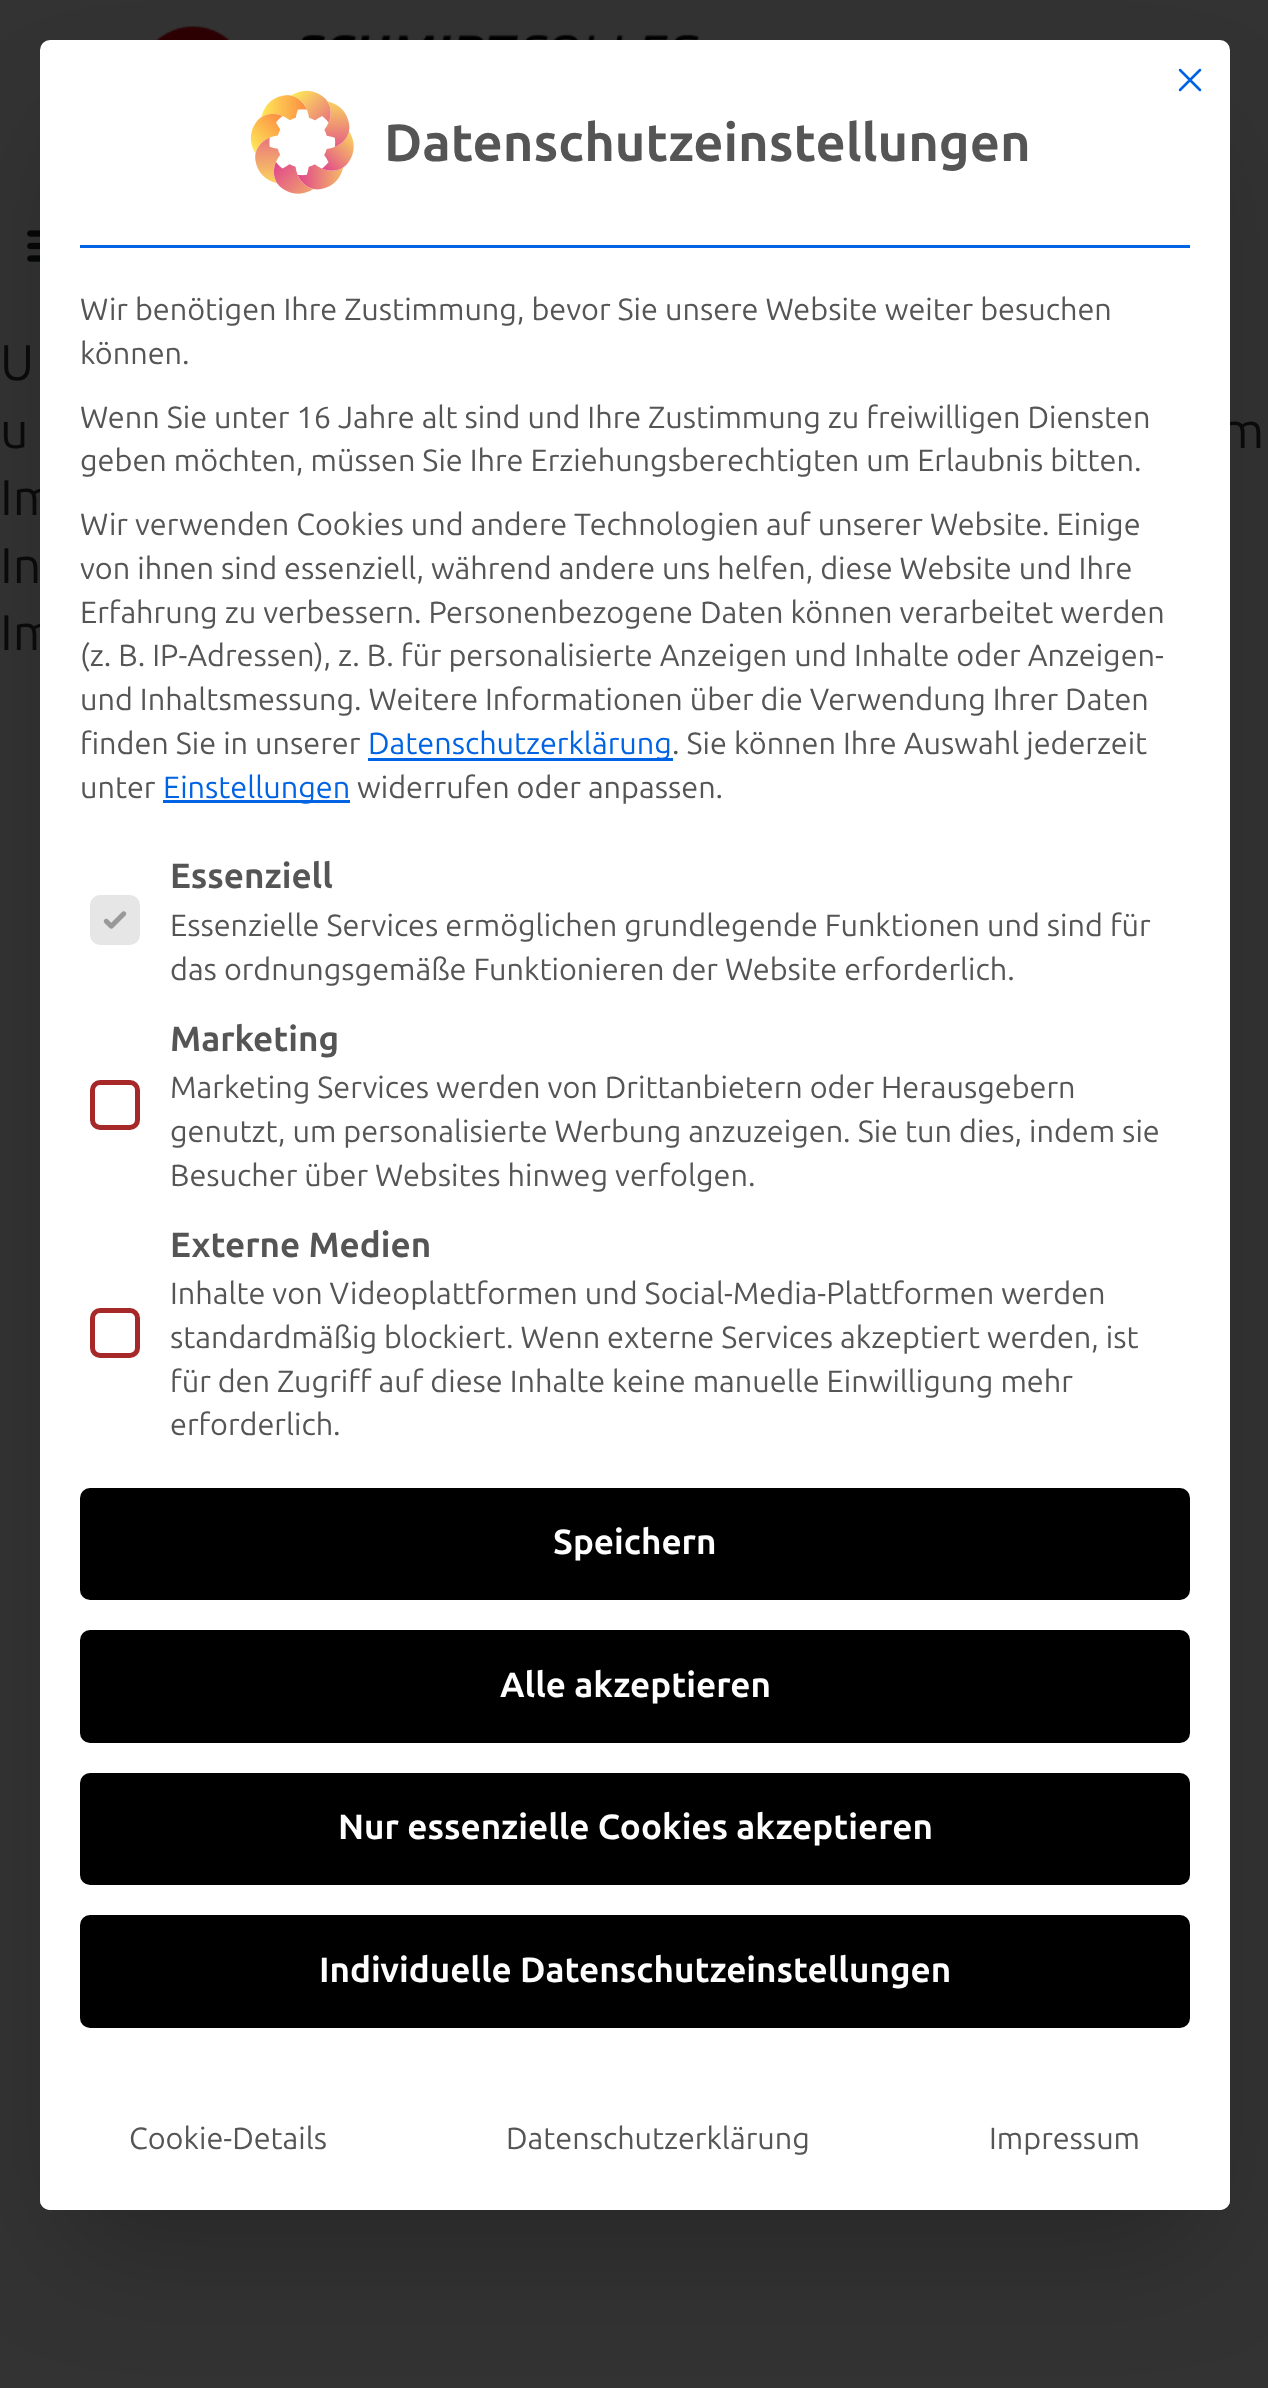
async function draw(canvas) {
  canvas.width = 1268
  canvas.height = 2388
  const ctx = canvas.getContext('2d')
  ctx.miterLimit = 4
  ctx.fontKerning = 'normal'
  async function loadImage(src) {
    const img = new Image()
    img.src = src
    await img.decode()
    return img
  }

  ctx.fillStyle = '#333'
  ctx.fillRect(0, 0, 1268, 2388)
  ctx.drawImage(await loadImage('image2.png'), 156, 26, 543, 14)
  ctx.drawImage(await loadImage('image3.png'), 27, 230, 13, 32)
  ctx.fillStyle = '#00000040'
  ctx.filter = 'blur(62.5px)'
  ctx.beginPath()
  ctx.rect(70, 133, 1130, 2110)
  ctx.fill()
  ctx.filter = 'none'
  ctx.font = '50px Ubuntu'
  ctx.fillStyle = '#0a0a0a'
  ctx.fillText('m', 1221, 448)
  ctx.fillText('Im', 0, 515)
  ctx.fillText('Im', 0, 650)
  ctx.fillStyle = '#fff'
  ctx.beginPath()
  ctx.roundRect(40, 40, 1190, 2170, 10)
  ctx.fill()
  ctx.beginPath()
  ctx.moveTo(1180, 90)
  ctx.lineTo(1200, 70)
  ctx.moveTo(1180, 70)
  ctx.lineTo(1200, 90)
  ctx.strokeStyle = '#0063e3'
  ctx.lineWidth = 2.5
  ctx.lineCap = 'round'
  ctx.lineJoin = 'round'
  ctx.stroke()
  ctx.fillStyle = '#0063e3'
  ctx.fillRect(80, 245, 1110, 3)
  ctx.drawImage(await loadImage('image0.png'), 250, 90, 104, 104)
  ctx.font = 'bold 52.5px Ubuntu'
  ctx.fillStyle = '#555'
  ctx.fillText('Datenschutzeinstellungen', 384, 161)
  ctx.font = '30.6px Ubuntu'
  ctx.fillText('Wir benötigen Ihre Zustimmung, bevor Sie unsere Website weiter besuchen', 80, 320)
  ctx.fillText('können.', 80, 364)
  ctx.fillText('Wenn Sie unter 16 Jahre alt sind und Ihre Zustimmung zu freiwilligen Diensten', 80, 428)
  ctx.fillText('geben möchten, müssen Sie Ihre Erziehungsberechtigten um Erlaubnis bitten.', 80, 471)
  ctx.fillText('Wir verwenden Cookies und andere Technologien auf unserer Website. Einige', 80, 535)
  ctx.fillText('von ihnen sind essenziell, während andere uns helfen, diese Website und Ihre', 80, 579)
  ctx.fillText('Erfahrung zu verbessern. Personenbezogene Daten können verarbeitet werden', 80, 623)
  ctx.fillText('(z. B. IP-Adressen), z. B. für personalisierte Anzeigen und Inhalte oder Anzeigen-', 80, 666)
  ctx.fillText('und Inhaltsmessung. Weitere Informationen über die Verwendung Ihrer Daten', 80, 710)
  ctx.fillText('finden Sie in unserer', 80, 754)
  ctx.fillStyle = '#0063e3'
  ctx.fillRect(368, 758, 305, 3)
  ctx.fillText('Datenschutzerklärung', 368, 754)
  ctx.fillStyle = '#555'
  ctx.fillText('. Sie können Ihre Auswahl jederzeit', 672, 754)
  ctx.fillText('unter', 80, 798)
  ctx.fillStyle = '#0063e3'
  ctx.fillRect(163, 800, 187, 3)
  ctx.fillText('Einstellungen', 163, 798)
  ctx.fillStyle = '#555'
  ctx.fillText('widerrufen oder anpassen.', 357, 798)
  ctx.fillStyle = '#e6e6e6'
  ctx.beginPath()
  ctx.roundRect(92.5, 897.5, 45, 45, 7.5)
  ctx.fill()
  ctx.strokeStyle = '#e6e6e6'
  ctx.lineWidth = 5
  ctx.lineJoin = 'miter'
  ctx.stroke()
  ctx.drawImage(await loadImage('image1.png'), 103, 911, 24, 18)
  ctx.font = 'bold 35px Ubuntu'
  ctx.fillStyle = '#555'
  ctx.fillText('Essenziell', 170, 888)
  ctx.font = '30.6px Ubuntu'
  ctx.fillText('Essenzielle Services ermöglichen grundlegende Funktionen und sind für', 170, 936)
  ctx.fillText('das ordnungsgemäße Funktionieren der Website erforderlich.', 170, 980)
  ctx.beginPath()
  ctx.roundRect(92.5, 1082.5, 45, 45, 7.5)
  ctx.strokeStyle = '#a72828'
  ctx.stroke()
  ctx.font = 'bold 35px Ubuntu'
  ctx.fillText('Marketing', 170, 1051)
  ctx.font = '30.6px Ubuntu'
  ctx.fillText('Marketing Services werden von Drittanbietern oder Herausgebern', 170, 1098)
  ctx.fillText('genutzt, um personalisierte Werbung anzuzeigen. Sie tun dies, indem sie', 170, 1142)
  ctx.fillText('Besucher über Websites hinweg verfolgen.', 170, 1186)
  ctx.beginPath()
  ctx.roundRect(92.5, 1310.5, 45, 45, 7.5)
  ctx.stroke()
  ctx.font = 'bold 35px Ubuntu'
  ctx.fillText('Externe Medien', 170, 1257)
  ctx.font = '30.6px Ubuntu'
  ctx.fillText('Inhalte von Videoplattformen und Social-Media-Plattformen werden', 170, 1304)
  ctx.fillText('standardmäßig blockiert. Wenn externe Services akzeptiert werden, ist', 170, 1348)
  ctx.fillText('für den Zugriff auf diese Inhalte keine manuelle Einwilligung mehr', 170, 1392)
  ctx.fillText('erforderlich.', 170, 1435)
  ctx.fillStyle = '#000'
  ctx.beginPath()
  ctx.roundRect(80, 1488, 1110, 112, 10)
  ctx.fill()
  ctx.font = 'bold 35px Ubuntu'
  ctx.fillStyle = '#fff'
  ctx.fillText('Speichern', 553, 1554)
  ctx.fillStyle = '#000'
  ctx.beginPath()
  ctx.roundRect(80, 1630, 1110, 113, 10)
  ctx.fill()
  ctx.fillStyle = '#fff'
  ctx.fillText('Alle akzeptieren', 500, 1697)
  ctx.fillStyle = '#000'
  ctx.beginPath()
  ctx.roundRect(80, 1773, 1110, 112, 10)
  ctx.fill()
  ctx.fillStyle = '#fff'
  ctx.fillText('Nur essenzielle Cookies akzeptieren', 338, 1839)
  ctx.fillStyle = '#000'
  ctx.beginPath()
  ctx.roundRect(80, 1915, 1110, 113, 10)
  ctx.fill()
  ctx.fillStyle = '#fff'
  ctx.fillText('Individuelle Datenschutzeinstellungen', 319, 1982)
  ctx.beginPath()
  ctx.roundRect(40, 2068, 1190, 142, [0, 0, 10, 10])
  ctx.fill()
  ctx.font = '30.6px Ubuntu'
  ctx.fillStyle = '#555'
  ctx.fillText('Cookie-Details', 129, 2149)
  ctx.fillText('Datenschutzerklärung', 506, 2149)
  ctx.fillText('Impressum', 989, 2149)
  ctx.font = '50px Ubuntu'
  ctx.fillStyle = '#0a0a0a'
  ctx.fillText('U', 0, 380)
  ctx.fillText('u', 0, 448)
  ctx.fillText('In', 0, 583)
}

draw(document.querySelector('canvas'))
